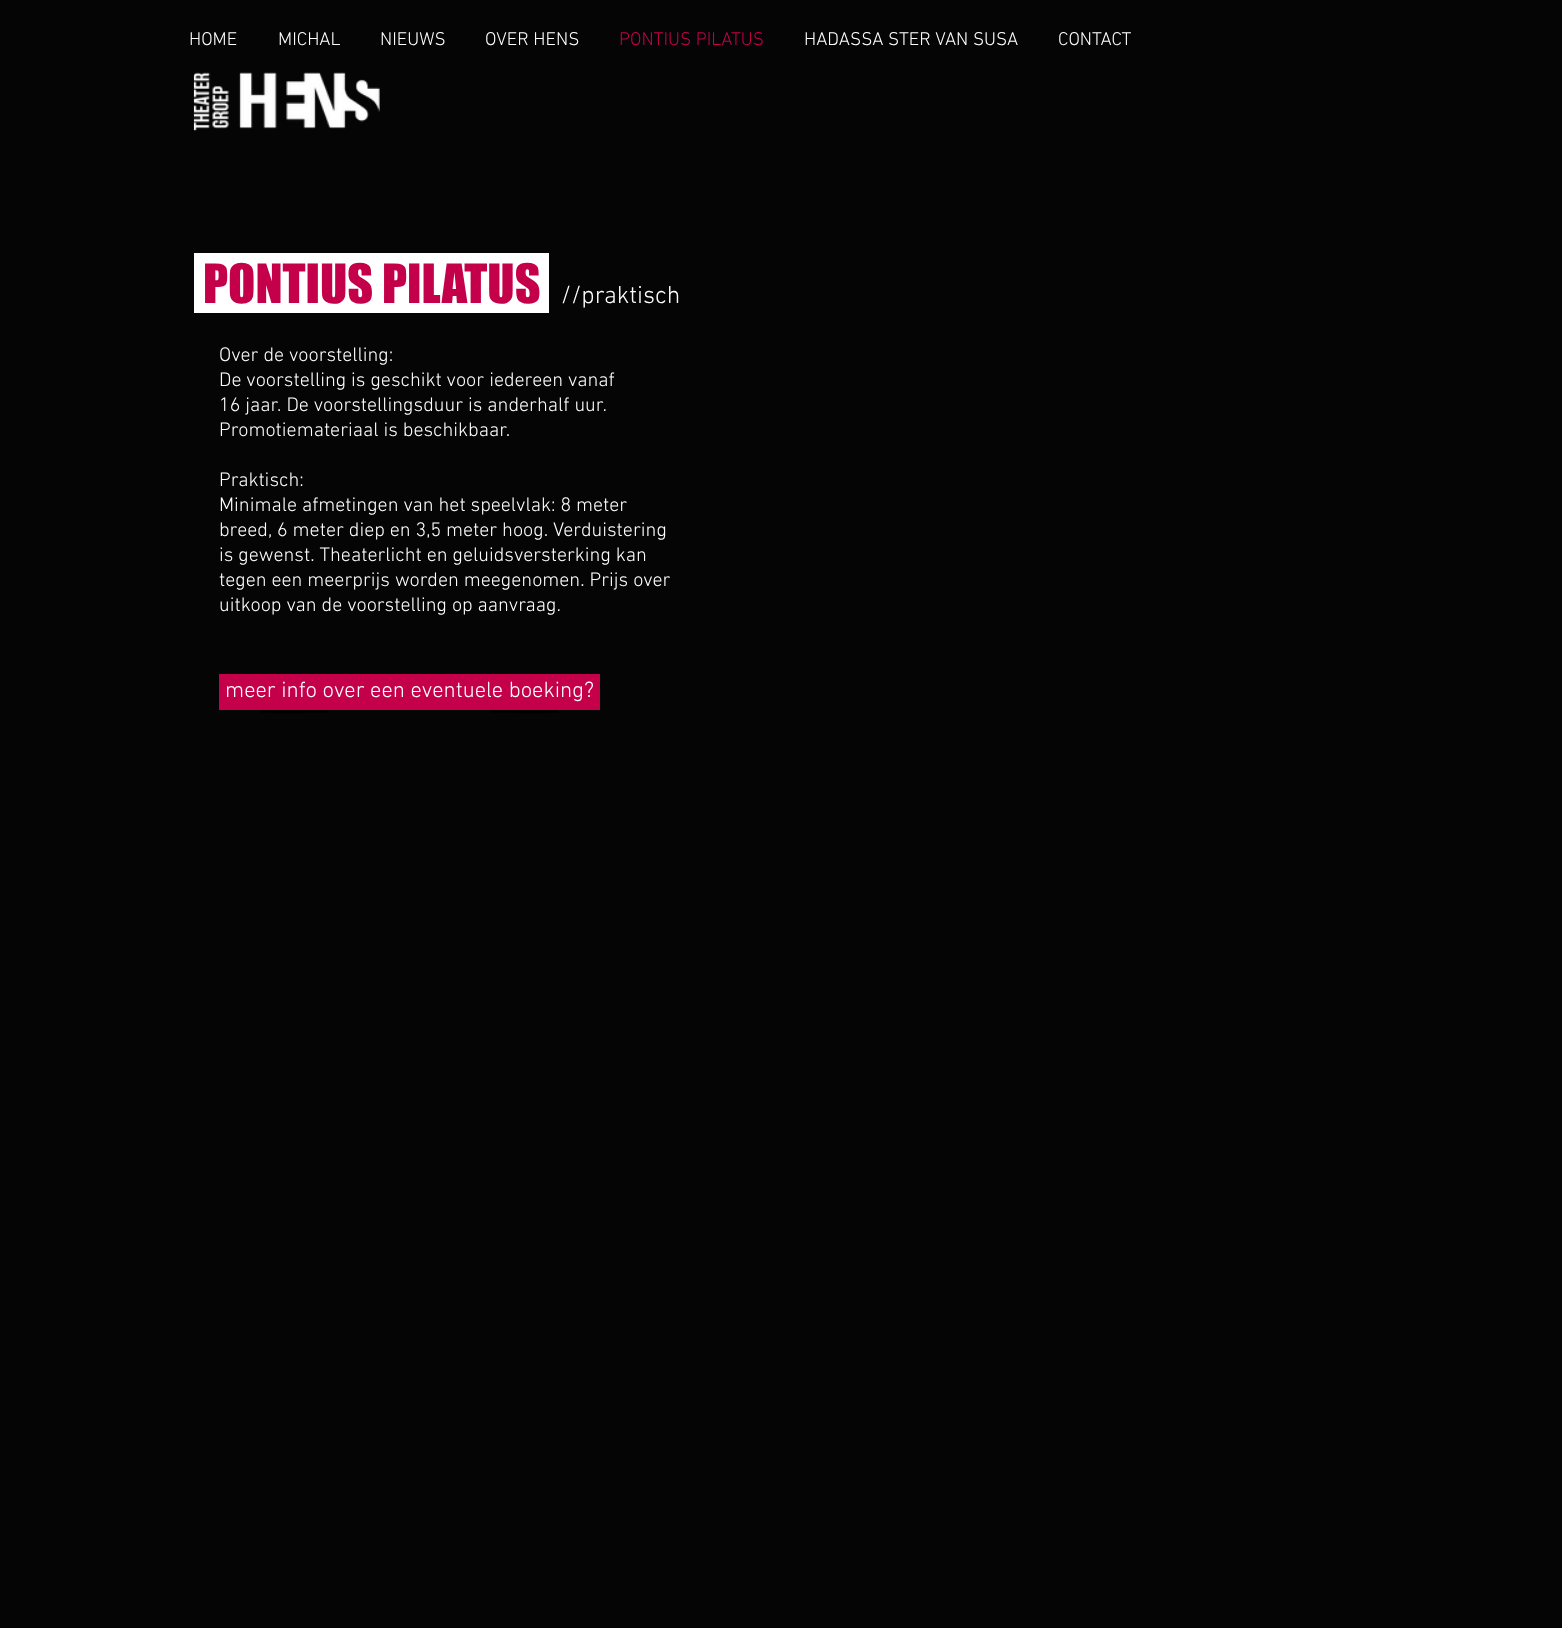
async function draw(canvas) {
  canvas.width = 1562
  canvas.height = 1628
  const ctx = canvas.getContext('2d')
  ctx.miterLimit = 4
  ctx.fontKerning = 'normal'
  async function loadImage(src) {
    const img = new Image()
    img.src = src
    await img.decode()
    return img
  }

  ctx.fillStyle = '#050505'
  ctx.fillRect(0, 0, 1562, 1628)
  ctx.font = '300 18.75px "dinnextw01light"'
  ctx.fillStyle = '#fff'
  ctx.fillText('HOME', 189, 45)
  ctx.fillText('MICHAL', 278, 45)
  ctx.fillText('NIEUWS', 380, 45)
  ctx.fillText('OVER HENS', 485, 45)
  ctx.fillStyle = '#c4004a'
  ctx.fillText('PONTIUS PILATUS', 619, 45)
  ctx.fillStyle = '#fff'
  ctx.fillText('HADASSA STER VAN SUSA', 804, 45)
  ctx.fillText('CONTACT', 1058, 45)
  ctx.drawImage(await loadImage('image0.png'), 193, 72, 187, 59)
  ctx.fillRect(194, 253, 355, 60)
  ctx.font = '50px "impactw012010"'
  ctx.fillStyle = '#c4004a'
  ctx.fillText('PONTIUS PILATUS', 203, 303)
  ctx.font = '300 25px "dinnextw01light"'
  ctx.fillStyle = '#fff'
  ctx.fillText('//praktisch', 561, 303)
  ctx.font = '300 20px "dinnextw01light"'
  ctx.fillText('Over de voorstelling:', 219, 361)
  ctx.fillText('De voorstelling is geschikt voor iedereen vanaf', 219, 386)
  ctx.fillText('16 jaar. De voorstellingsduur is anderhalf uur.', 219, 411)
  ctx.fillText('Promotiemateriaal is beschikbaar.', 219, 436)
  ctx.fillText('Praktisch:', 219, 486)
  ctx.fillText('Minimale afmetingen van het speelvlak: 8 meter', 219, 511)
  ctx.fillText('breed, 6 meter diep en 3,5 meter hoog. Verduistering', 219, 536)
  ctx.fillText('is gewenst. Theaterlicht en geluidsversterking kan', 219, 561)
  ctx.fillText('tegen een meerprijs worden meegenomen. Prijs over', 219, 586)
  ctx.fillText('uitkoop van de voorstelling op aanvraag.', 219, 611)
  ctx.fillStyle = '#c4004a'
  ctx.fillRect(219, 674, 381, 36)
  ctx.font = '300 22.5px "dinnextw01light"'
  ctx.fillStyle = '#fff'
  ctx.fillText('meer info over een eventuele boeking?', 225, 697)
  ctx.drawImage(await loadImage('image1.png'), 261, 710, 67, 3)
  ctx.drawImage(await loadImage('image2.png'), 491, 710, 67, 3)
}

draw(document.querySelector('canvas'))
